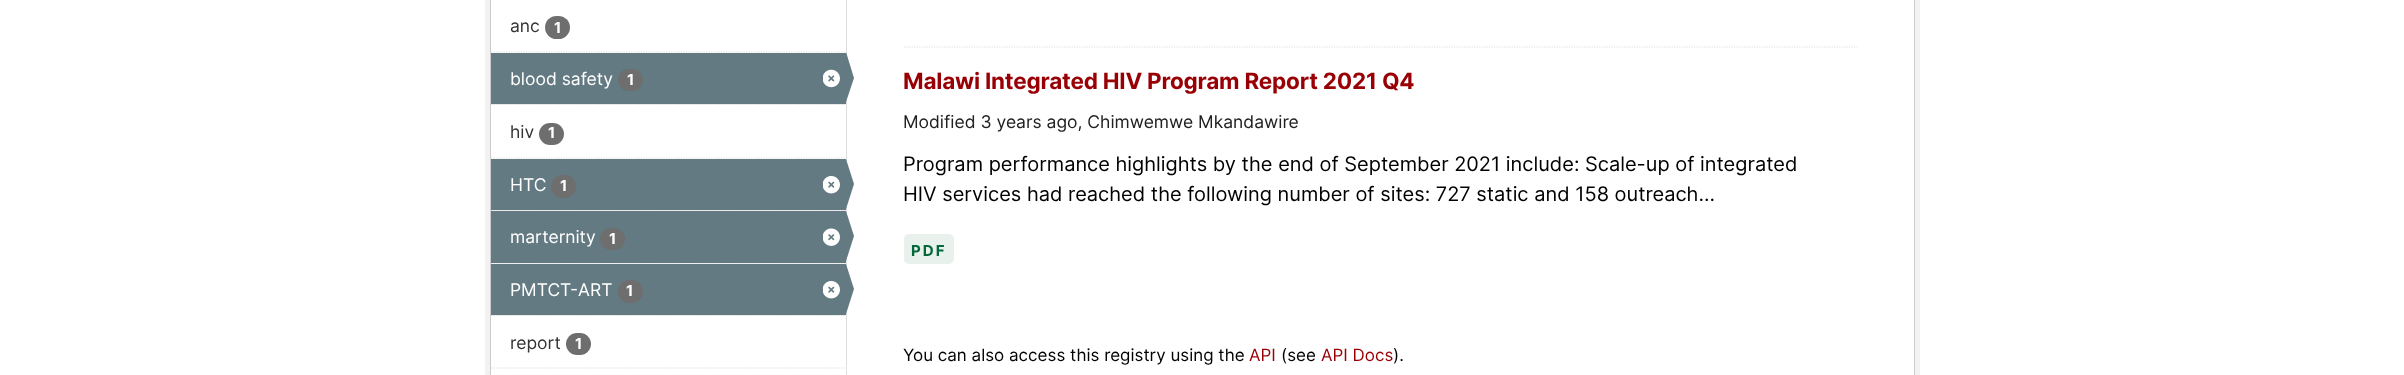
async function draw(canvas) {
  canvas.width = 2404
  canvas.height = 375
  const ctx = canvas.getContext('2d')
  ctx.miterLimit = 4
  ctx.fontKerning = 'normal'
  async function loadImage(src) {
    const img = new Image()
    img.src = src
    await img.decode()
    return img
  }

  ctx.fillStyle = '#fff'
  ctx.fillRect(0, 0, 2404, 375)
  ctx.strokeStyle = '#f2f2f2'
  ctx.lineWidth = 5
  ctx.strokeRect(487.5, -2.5, 1430, 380)
  ctx.strokeStyle = '#ccc'
  ctx.lineWidth = 1
  ctx.strokeRect(490.5, -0.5, 1424, 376)
  ctx.beginPath()
  ctx.moveTo(491, 52)
  ctx.lineTo(846, 52)
  ctx.strokeStyle = '#ddd'
  ctx.lineWidth = 1.2
  ctx.setLineDash([1.25, 1.25])
  ctx.stroke()
  ctx.font = '17.5px Inter'
  ctx.fillStyle = '#333'
  ctx.fillText('anc', 510, 32)
  ctx.fillStyle = '#6e6e6e'
  ctx.beginPath()
  ctx.roundRect(545, 16, 25, 23, 11.5)
  ctx.fill()
  ctx.font = 'bold 15px Inter'
  ctx.fillStyle = '#fff'
  ctx.fillText('1', 554, 33)
  ctx.fillStyle = '#f6f6f6'
  ctx.fillRect(492, 104, 354, 1)
  ctx.beginPath()
  ctx.moveTo(491, 104.5)
  ctx.lineTo(846, 104.5)
  ctx.stroke()
  ctx.fillStyle = '#647a82'
  ctx.fillRect(491, 53, 355, 51)
  ctx.font = '17.5px Inter'
  ctx.fillStyle = '#fff'
  ctx.fillText('blood safety', 510, 85)
  ctx.fillStyle = '#6e6e6e'
  ctx.beginPath()
  ctx.roundRect(618, 69, 25, 22, 11)
  ctx.fill()
  ctx.font = 'bold 15px Inter'
  ctx.fillStyle = '#fff'
  ctx.fillText('1', 627, 85)
  ctx.drawImage(await loadImage('image0.png'), 823, 69, 17, 19)
  ctx.fillStyle = '#ddd'
  ctx.fillRect(846, 0, 1, 375)
  ctx.fillStyle = '#647a82'
  ctx.beginPath()
  ctx.moveTo(846, 102)
  ctx.lineTo(846, 52)
  ctx.lineTo(854, 78)
  ctx.closePath()
  ctx.fill()
  ctx.beginPath()
  ctx.moveTo(491, 158)
  ctx.lineTo(846, 158)
  ctx.stroke()
  ctx.font = '17.5px Inter'
  ctx.fillStyle = '#333'
  ctx.fillText('hiv', 510, 138)
  ctx.fillStyle = '#6e6e6e'
  ctx.beginPath()
  ctx.roundRect(539, 123, 25, 22, 11)
  ctx.fill()
  ctx.font = 'bold 15px Inter'
  ctx.fillStyle = '#fff'
  ctx.fillText('1', 548, 138)
  ctx.fillStyle = '#f6f6f6'
  ctx.fillRect(492, 210, 354, 1)
  ctx.beginPath()
  ctx.moveTo(491, 210.5)
  ctx.lineTo(846, 210.5)
  ctx.stroke()
  ctx.fillStyle = '#647a82'
  ctx.fillRect(491, 159, 355, 51)
  ctx.font = '17.5px Inter'
  ctx.fillStyle = '#fff'
  ctx.fillText('HTC', 510, 191)
  ctx.fillStyle = '#6e6e6e'
  ctx.beginPath()
  ctx.roundRect(551, 175, 25, 23, 11.5)
  ctx.fill()
  ctx.font = 'bold 15px Inter'
  ctx.fillStyle = '#fff'
  ctx.fillText('1', 560, 191)
  ctx.drawImage(await loadImage('image1.png'), 823, 175, 17, 19)
  ctx.fillStyle = '#647a82'
  ctx.beginPath()
  ctx.moveTo(846, 209)
  ctx.lineTo(846, 159)
  ctx.lineTo(854, 184)
  ctx.closePath()
  ctx.fill()
  ctx.fillStyle = '#f6f6f6'
  ctx.fillRect(491, 263, 355, 1)
  ctx.beginPath()
  ctx.moveTo(491, 263)
  ctx.lineTo(846, 263)
  ctx.stroke()
  ctx.fillStyle = '#647a82'
  ctx.fillRect(491, 211, 355, 52)
  ctx.font = '17.5px Inter'
  ctx.fillStyle = '#fff'
  ctx.fillText('marternity', 510, 243)
  ctx.fillStyle = '#6e6e6e'
  ctx.beginPath()
  ctx.roundRect(600, 228, 25, 22, 11)
  ctx.fill()
  ctx.font = 'bold 15px Inter'
  ctx.fillStyle = '#fff'
  ctx.fillText('1', 609, 244)
  ctx.drawImage(await loadImage('image2.png'), 823, 228, 17, 18)
  ctx.fillStyle = '#647a82'
  ctx.beginPath()
  ctx.moveTo(846, 261)
  ctx.lineTo(846, 211)
  ctx.lineTo(854, 236)
  ctx.closePath()
  ctx.fill()
  ctx.fillStyle = '#f6f6f6'
  ctx.fillRect(492, 315, 354, 1)
  ctx.beginPath()
  ctx.moveTo(491, 315.5)
  ctx.lineTo(846, 315.5)
  ctx.stroke()
  ctx.fillStyle = '#647a82'
  ctx.fillRect(491, 264, 355, 51)
  ctx.font = '17.5px Inter'
  ctx.fillStyle = '#fff'
  ctx.fillText('PMTCT-ART', 510, 296)
  ctx.fillStyle = '#6e6e6e'
  ctx.beginPath()
  ctx.roundRect(618, 280, 25, 23, 11.5)
  ctx.fill()
  ctx.font = 'bold 15px Inter'
  ctx.fillStyle = '#fff'
  ctx.fillText('1', 626, 296)
  ctx.drawImage(await loadImage('image1.png'), 823, 280, 17, 19)
  ctx.fillStyle = '#647a82'
  ctx.beginPath()
  ctx.moveTo(846, 314)
  ctx.lineTo(846, 264)
  ctx.lineTo(854, 289)
  ctx.closePath()
  ctx.fill()
  ctx.beginPath()
  ctx.moveTo(491, 368)
  ctx.lineTo(846, 368)
  ctx.stroke()
  ctx.font = '17.5px Inter'
  ctx.fillStyle = '#333'
  ctx.fillText('report', 510, 349)
  ctx.fillStyle = '#6e6e6e'
  ctx.beginPath()
  ctx.roundRect(566, 333, 25, 22, 11)
  ctx.fill()
  ctx.font = 'bold 15px Inter'
  ctx.fillStyle = '#fff'
  ctx.fillText('1', 575, 349)
  ctx.beginPath()
  ctx.moveTo(904, 47)
  ctx.lineTo(1857.5, 47)
  ctx.stroke()
  ctx.letterSpacing = '-0.2px'
  ctx.font = 'bold 22.5px Inter'
  ctx.fillStyle = '#990005'
  ctx.fillText('Malawi Integrated HIV Program Report 2021 Q4', 903, 89)
  ctx.letterSpacing = '0px'
  ctx.font = '17.5px Inter'
  ctx.fillStyle = '#212121'
  ctx.fillText('Modified 3 years ago, Chimwemwe Mkandawire', 903, 128)
  ctx.font = '20px Inter'
  ctx.fillStyle = '#000'
  ctx.fillText('Program performance highlights by the end of September 2021 include: Scale-up of integrated', 903, 171)
  ctx.fillText('HIV services had reached the following number of sites: 727 static and 158 outreach...', 903, 201)
  ctx.fillStyle = '#e9f1ed'
  ctx.beginPath()
  ctx.roundRect(904, 234, 50, 30, 5)
  ctx.fill()
  ctx.letterSpacing = '2px'
  ctx.font = 'bold 15px Inter'
  ctx.fillStyle = '#056839'
  ctx.fillText('PDF', 911, 256)
  ctx.letterSpacing = '0px'
  ctx.font = '17px Inter'
  ctx.fillStyle = '#000'
  ctx.fillText('You can also access this registry using the', 903, 361)
  ctx.fillStyle = '#990005'
  ctx.fillText('API', 1249, 361)
  ctx.fillStyle = '#000'
  ctx.fillText('(see', 1281, 361)
  ctx.fillStyle = '#990005'
  ctx.fillText('API Docs', 1321, 361)
  ctx.fillStyle = '#000'
  ctx.fillText(').', 1393, 361)
}

draw(document.querySelector('canvas'))
